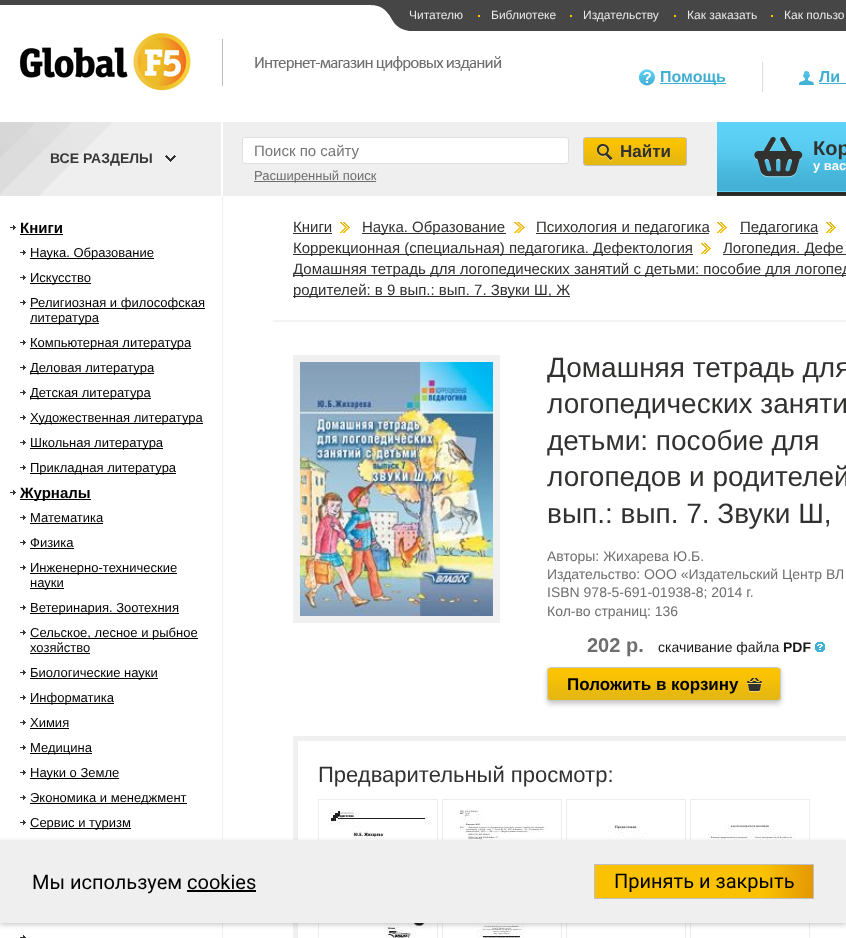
async function draw(canvas) {
  canvas.width = 846
  canvas.height = 938
  const ctx = canvas.getContext('2d')
  ctx.miterLimit = 4
  ctx.fontKerning = 'normal'
  async function loadImage(src) {
    const img = new Image()
    img.src = src
    await img.decode()
    return img
  }
  let gradient

  ctx.fillStyle = '#fff'
  ctx.fillRect(0, 0, 846, 938)
  ctx.fillStyle = '#464646'
  ctx.fillRect(0, 0, 409, 5)
  ctx.fillRect(409, 0, 437, 31)
  ctx.drawImage(await loadImage('image0.png'), 371, 5, 38, 26)
  ctx.font = '12px Liberation Sans'
  ctx.fillStyle = '#e9e8e8'
  ctx.fillText('Читателю', 409, 19)
  ctx.fillStyle = '#fdc301'
  ctx.fillRect(478, 15, 2, 2)
  ctx.fillStyle = '#e9e8e8'
  ctx.fillText('Библиотеке', 491, 19)
  ctx.fillStyle = '#fdc301'
  ctx.fillRect(570, 15, 2, 2)
  ctx.fillStyle = '#e9e8e8'
  ctx.fillText('Издательству', 583, 19)
  ctx.fillStyle = '#fdc301'
  ctx.fillRect(674, 15, 2, 2)
  ctx.fillStyle = '#e9e8e8'
  ctx.fillText('Как заказать', 687, 19)
  ctx.fillStyle = '#fdc301'
  ctx.fillRect(771, 15, 2, 2)
  ctx.fillStyle = '#e9e8e8'
  ctx.fillText('Как пользо', 784, 19)
  ctx.drawImage(await loadImage('image1.png'), 19, 33, 483, 58)
  ctx.fillStyle = '#ddd'
  ctx.fillRect(762, 62, 1, 30)
  ctx.drawImage(await loadImage('image2.png'), 638, 69, 17, 17)
  ctx.fillStyle = '#41afd3'
  ctx.fillRect(660, 83, 66, 1)
  ctx.font = 'bold 16px Liberation Sans'
  ctx.fillText('Помощь', 660, 82)
  ctx.drawImage(await loadImage('image3.png'), 799, 70, 15, 15)
  ctx.fillText('Ли', 819, 82)
  ctx.fillRect(819, 83, 27, 1)
  ctx.fillStyle = '#efefef'
  ctx.fillRect(0, 122, 717, 74)
  ctx.drawImage(await loadImage('image4.png'), 0, 122, 112, 74)
  ctx.drawImage(await loadImage('image5.png'), 717, 122, 129, 74)
  ctx.drawImage(await loadImage('image6.png'), 754, 136, 49, 42)
  ctx.font = 'bold 20px Liberation Sans'
  ctx.fillStyle = '#313130'
  ctx.fillText('Кор', 813, 155)
  ctx.font = 'bold 13px Liberation Sans'
  ctx.fillStyle = '#fff'
  ctx.fillText('у вас', 813, 170)
  ctx.beginPath()
  ctx.roundRect(242.5, 137.5, 326, 26, 2.5)
  ctx.fill()
  ctx.strokeStyle = '#e0e0e0'
  ctx.stroke()
  ctx.font = '15px Liberation Sans'
  ctx.fillStyle = '#757575'
  ctx.fillText('Поиск по сайту', 254, 156)
  ctx.fillStyle = '#6e6e6e'
  ctx.fillRect(254, 181, 122, 1)
  ctx.font = '13px Liberation Sans'
  ctx.fillText('Расширенный поиск', 254, 180)
  ctx.drawImage(await loadImage('image7.png'), 584, 138, 103, 27)
  ctx.beginPath()
  ctx.roundRect(583.5, 137.5, 103, 28, 2.5)
  ctx.strokeStyle = '#c0c0c0'
  ctx.stroke()
  ctx.font = 'bold 17px Liberation Sans'
  ctx.fillStyle = '#313130'
  ctx.fillText('Найти', 620, 157)
  ctx.fillStyle = '#fff'
  ctx.fillRect(221, 122, 2, 74)
  ctx.font = 'bold 14px Liberation Sans'
  ctx.fillStyle = '#393939'
  ctx.fillText('ВСЕ РАЗДЕЛЫ', 50, 163)
  ctx.drawImage(await loadImage('image8.png'), 165, 155, 11, 8)
  ctx.fillStyle = '#efefef'
  ctx.fillRect(222, 196, 1, 742)
  ctx.drawImage(await loadImage('image9.png'), 10, 225, 6, 5)
  ctx.font = 'bold 15px Liberation Sans'
  ctx.fillStyle = '#000'
  ctx.fillText('Книги', 20, 233)
  ctx.fillRect(20, 234, 43, 1)
  ctx.drawImage(await loadImage('image9.png'), 20, 250, 6, 5)
  ctx.fillRect(30, 258, 124, 1)
  ctx.font = '13px Liberation Sans'
  ctx.fillText('Наука. Образование', 30, 257)
  ctx.drawImage(await loadImage('image9.png'), 20, 275, 6, 5)
  ctx.fillRect(30, 283, 61, 1)
  ctx.fillText('Искусство', 30, 282)
  ctx.drawImage(await loadImage('image9.png'), 20, 300, 6, 5)
  ctx.fillRect(30, 308, 175, 1)
  ctx.fillText('Религиозная и философская', 30, 307)
  ctx.fillRect(30, 323, 69, 1)
  ctx.fillText('литература', 30, 322)
  ctx.drawImage(await loadImage('image9.png'), 20, 340, 6, 5)
  ctx.fillRect(30, 348, 161, 1)
  ctx.fillText('Компьютерная литература', 30, 347)
  ctx.drawImage(await loadImage('image9.png'), 20, 365, 6, 5)
  ctx.fillRect(30, 373, 124, 1)
  ctx.fillText('Деловая литература', 30, 372)
  ctx.drawImage(await loadImage('image9.png'), 20, 390, 6, 5)
  ctx.fillRect(30, 398, 121, 1)
  ctx.fillText('Детская литература', 30, 397)
  ctx.drawImage(await loadImage('image9.png'), 20, 415, 6, 5)
  ctx.fillRect(30, 423, 173, 1)
  ctx.fillText('Художественная литература', 30, 422)
  ctx.drawImage(await loadImage('image9.png'), 20, 440, 6, 5)
  ctx.fillRect(30, 448, 133, 1)
  ctx.fillText('Школьная литература', 30, 447)
  ctx.drawImage(await loadImage('image9.png'), 20, 465, 6, 5)
  ctx.fillRect(30, 473, 146, 1)
  ctx.fillText('Прикладная литература', 30, 472)
  ctx.drawImage(await loadImage('image9.png'), 10, 490, 6, 5)
  ctx.fillRect(20, 499, 71, 1)
  ctx.font = 'bold 15px Liberation Sans'
  ctx.fillText('Журналы', 20, 498)
  ctx.drawImage(await loadImage('image9.png'), 20, 515, 6, 5)
  ctx.font = '13px Liberation Sans'
  ctx.fillText('Математика', 30, 522)
  ctx.fillRect(30, 523, 73, 1)
  ctx.drawImage(await loadImage('image9.png'), 20, 540, 6, 5)
  ctx.fillText('Физика', 30, 547)
  ctx.fillRect(30, 548, 44, 1)
  ctx.drawImage(await loadImage('image9.png'), 20, 565, 6, 5)
  ctx.fillRect(30, 573, 147, 1)
  ctx.fillText('Инженерно-технические', 30, 572)
  ctx.fillRect(30, 588, 34, 1)
  ctx.fillText('науки', 30, 587)
  ctx.drawImage(await loadImage('image9.png'), 20, 605, 6, 5)
  ctx.fillRect(30, 613, 149, 1)
  ctx.fillText('Ветеринария. Зоотехния', 30, 612)
  ctx.drawImage(await loadImage('image9.png'), 20, 630, 6, 5)
  ctx.fillRect(30, 638, 168, 1)
  ctx.fillText('Сельское, лесное и рыбное', 30, 637)
  ctx.fillText('хозяйство', 30, 652)
  ctx.fillRect(30, 653, 60, 1)
  ctx.drawImage(await loadImage('image9.png'), 20, 670, 6, 5)
  ctx.fillRect(30, 678, 128, 1)
  ctx.fillText('Биологические науки', 30, 677)
  ctx.drawImage(await loadImage('image9.png'), 20, 695, 6, 5)
  ctx.fillRect(30, 703, 84, 1)
  ctx.fillText('Информатика', 30, 702)
  ctx.drawImage(await loadImage('image9.png'), 20, 720, 6, 5)
  ctx.fillText('Химия', 30, 727)
  ctx.fillRect(30, 728, 39, 1)
  ctx.drawImage(await loadImage('image9.png'), 20, 745, 6, 5)
  ctx.fillRect(30, 753, 62, 1)
  ctx.fillText('Медицина', 30, 752)
  ctx.drawImage(await loadImage('image9.png'), 20, 770, 6, 5)
  ctx.fillRect(30, 778, 89, 1)
  ctx.fillText('Науки о Земле', 30, 777)
  ctx.drawImage(await loadImage('image9.png'), 20, 795, 6, 5)
  ctx.fillRect(30, 803, 157, 1)
  ctx.fillText('Экономика и менеджмент', 30, 802)
  ctx.drawImage(await loadImage('image9.png'), 20, 820, 6, 5)
  ctx.fillRect(30, 828, 101, 1)
  ctx.fillText('Сервис и туризм', 30, 827)
  ctx.drawImage(await loadImage('image10.png'), 20, 935, 6, 3)
  ctx.fillStyle = '#f4f4f4'
  ctx.fillRect(273, 320, 573, 2)
  ctx.font = '15px Liberation Sans'
  ctx.fillStyle = '#313130'
  ctx.fillText('Книги', 293, 232)
  ctx.fillRect(293, 233, 39, 1)
  ctx.drawImage(await loadImage('image11.png'), 340, 222, 10, 11)
  ctx.fillRect(362, 233, 144, 1)
  ctx.fillText('Наука. Образование', 362, 232)
  ctx.drawImage(await loadImage('image12.png'), 514, 222, 11, 11)
  ctx.fillRect(536, 233, 173, 1)
  ctx.fillText('Психология и педагогика', 536, 232)
  ctx.drawImage(await loadImage('image11.png'), 717, 222, 10, 11)
  ctx.fillRect(740, 233, 78, 1)
  ctx.fillText('Педагогика', 740, 232)
  ctx.drawImage(await loadImage('image11.png'), 826, 222, 10, 11)
  ctx.fillRect(293, 254, 400, 1)
  ctx.fillText('Коррекционная (специальная) педагогика. Дефектология', 293, 253)
  ctx.drawImage(await loadImage('image11.png'), 701, 243, 10, 11)
  ctx.fillRect(723, 254, 123, 1)
  ctx.fillText('Логопедия. Дефе', 723, 253)
  ctx.fillRect(293, 275, 553, 1)
  ctx.fillText('Домашняя тетрадь для логопедических занятий с детьми: пособие для логопед', 293, 274)
  ctx.fillRect(293, 296, 277, 1)
  ctx.fillText('родителей: в 9 вып.: вып. 7. Звуки Ш, Ж', 293, 295)
  ctx.strokeStyle = '#f0f0f0'
  ctx.lineWidth = 7
  ctx.strokeRect(296.5, 358.5, 200, 261)
  ctx.drawImage(await loadImage('image13.png'), 300, 362, 193, 254)
  ctx.font = '28px Liberation Sans'
  ctx.fillText('Домашняя тетрадь для', 547, 377)
  ctx.fillText('логопедических заняти', 547, 413)
  ctx.fillText('детьми: пособие для', 547, 450)
  ctx.fillText('логопедов и родителей', 547, 486)
  ctx.fillText('вып.: вып. 7. Звуки Ш,', 547, 523)
  ctx.font = '14px Liberation Sans'
  ctx.fillStyle = '#6e6e6e'
  ctx.fillText('Авторы: Жихарева Ю.Б.', 547, 561)
  ctx.fillText('Издательство: ООО «Издательский Центр ВЛ', 547, 579)
  ctx.fillText('ISBN 978-5-691-01938-8; 2014 г.', 547, 597)
  ctx.fillText('Кол-во страниц: 136', 547, 616)
  ctx.font = 'bold 20px Liberation Sans'
  ctx.fillText('202 р.', 587, 652)
  ctx.font = '14px Liberation Sans'
  ctx.fillStyle = '#181818'
  ctx.fillText('скачивание файла', 658, 652)
  ctx.font = 'bold 14px Liberation Sans'
  ctx.fillText('PDF', 783, 652)
  ctx.drawImage(await loadImage('image14.png'), 815, 642, 10, 10)
  ctx.fillStyle = '#c9c9c9'
  ctx.filter = 'blur(2.5px)'
  ctx.beginPath()
  ctx.roundRect(547, 670, 234, 34, 4)
  ctx.fill()
  ctx.filter = 'none'
  ctx.drawImage(await loadImage('image15.png'), 547, 668, 234, 32)
  ctx.beginPath()
  ctx.roundRect(547.5, 667.5, 233, 33, 3.5)
  ctx.strokeStyle = '#c9c9c9'
  ctx.lineWidth = 1
  ctx.stroke()
  ctx.font = 'bold 17px Liberation Sans'
  ctx.fillStyle = '#000'
  ctx.fillText('Положить в корзину', 567, 690)
  ctx.drawImage(await loadImage('image16.png'), 747, 678, 15, 14)
  ctx.strokeStyle = '#f0f0f0'
  ctx.lineWidth = 5
  ctx.strokeRect(295.5, 738.5, 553, 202)
  ctx.font = '22px Liberation Sans'
  ctx.fillStyle = '#313130'
  ctx.fillText('Предварительный просмотр:', 318, 782)
  ctx.strokeStyle = '#eee'
  ctx.lineWidth = 1
  ctx.strokeRect(318.5, 799.5, 119, 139)
  ctx.drawImage(await loadImage('image17.png'), 328, 809, 104, 129)
  ctx.strokeRect(442.5, 799.5, 119, 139)
  ctx.drawImage(await loadImage('image18.png'), 460, 809, 88, 129)
  ctx.strokeRect(566.5, 799.5, 119, 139)
  ctx.drawImage(await loadImage('image19.png'), 582, 825, 90, 15)
  ctx.strokeRect(690.5, 799.5, 119, 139)
  ctx.drawImage(await loadImage('image20.png'), 706, 825, 90, 15)
  ctx.fillStyle = '#00000033'
  ctx.filter = 'blur(2.5px)'
  ctx.beginPath()
  ctx.rect(0, 842, 846, 83)
  ctx.fill()
  ctx.filter = 'none'
  ctx.fillStyle = '#efefef'
  ctx.fillRect(0, 840, 846, 83)
  ctx.font = '20px Roboto'
  ctx.fillStyle = '#000'
  ctx.fillText('Мы используем cookies', 32, 889)
  ctx.fillRect(187, 890, 69, 2)
  gradient = ctx.createLinearGradient(595, 879, 813, 884)
  gradient.addColorStop(0.77, '#fac202')
  gradient.addColorStop(1, '#e39703')
  ctx.fillStyle = gradient
  ctx.fillRect(595, 865, 218, 33)
  ctx.strokeStyle = '#c0c0c0'
  ctx.strokeRect(594.5, 864.5, 219, 34)
  ctx.fillStyle = '#000'
  ctx.fillText('Принять и закрыть', 614, 888)
}

draw(document.querySelector('canvas'))
